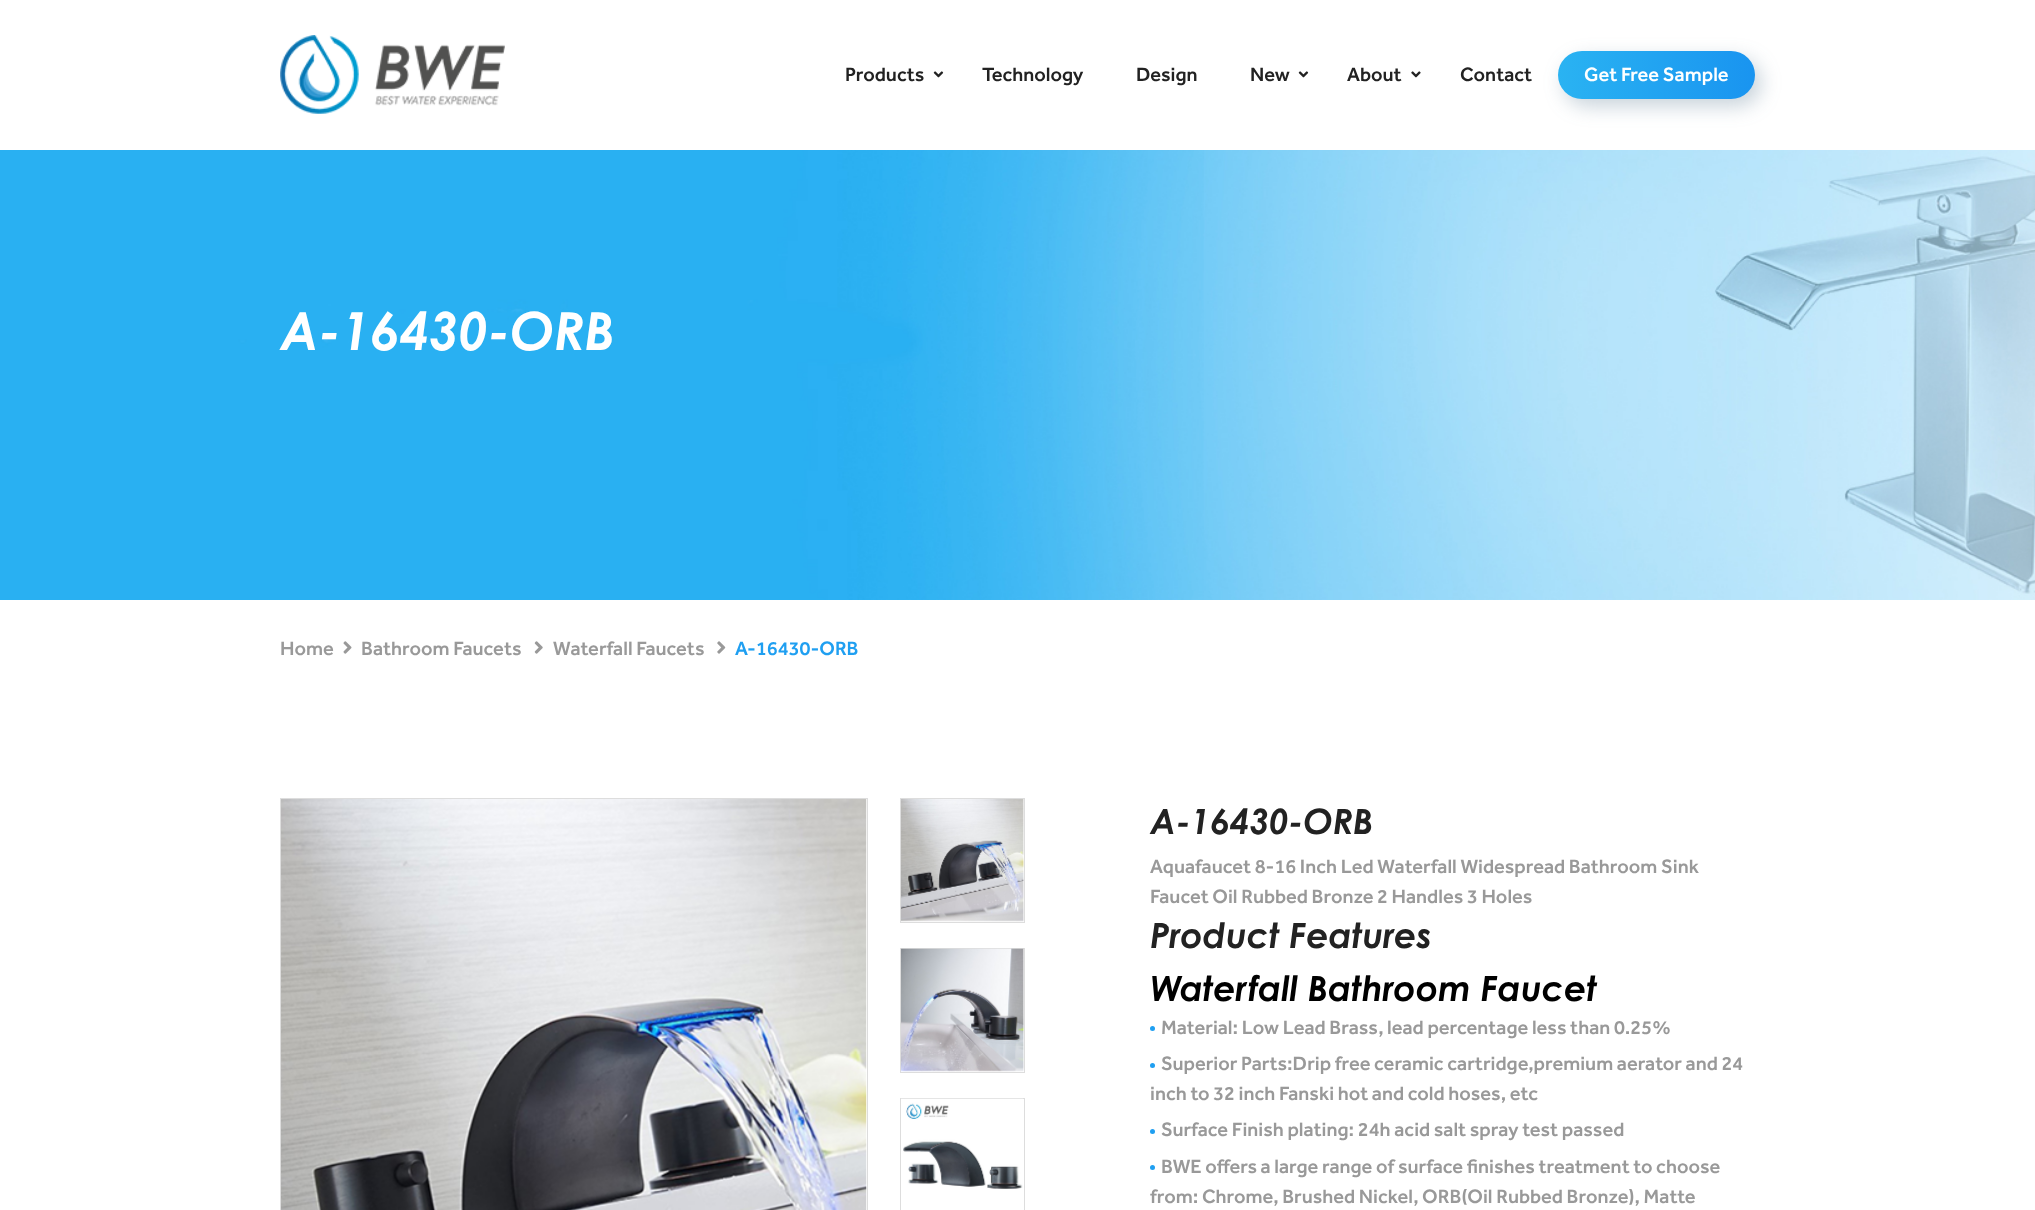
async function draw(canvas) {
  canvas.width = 2035
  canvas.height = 1210
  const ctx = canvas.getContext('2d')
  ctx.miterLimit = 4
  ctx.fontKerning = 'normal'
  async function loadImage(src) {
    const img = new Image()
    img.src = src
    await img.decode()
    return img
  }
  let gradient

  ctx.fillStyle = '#fff'
  ctx.fillRect(0, 0, 2035, 1210)
  ctx.drawImage(await loadImage('image0.png'), 280, 35, 225, 79)
  ctx.font = '500 20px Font'
  ctx.fillStyle = '#222'
  ctx.fillText('Products', 845, 81)
  ctx.drawImage(await loadImage('image1.png'), 933, 71, 11, 7)
  ctx.fillText('Technology', 982, 81)
  ctx.fillText('Design', 1136, 81)
  ctx.fillText('New', 1250, 81)
  ctx.drawImage(await loadImage('image1.png'), 1298, 71, 11, 7)
  ctx.fillText('About', 1347, 81)
  ctx.drawImage(await loadImage('image2.png'), 1411, 71, 10, 7)
  ctx.fillText('Contact', 1460, 81)
  ctx.fillStyle = '#4469854d'
  ctx.filter = 'blur(10px)'
  ctx.beginPath()
  ctx.roundRect(1564, 59, 197, 47, 23.5)
  ctx.fill()
  ctx.filter = 'none'
  gradient = ctx.createLinearGradient(1558, 75, 1755, 75)
  gradient.addColorStop(0, '#2ab3f2')
  gradient.addColorStop(1, '#1994f0')
  ctx.fillStyle = gradient
  ctx.beginPath()
  ctx.roundRect(1558, 51, 197, 48, 24)
  ctx.fill()
  ctx.fillStyle = '#fff'
  ctx.fillText('Get Free Sample', 1584, 81)
  ctx.drawImage(await loadImage('image3.png'), 0, 150, 2035, 450)
  ctx.font = 'italic bold 52.5px Century Gothic'
  ctx.fillText('A-16430-ORB', 280, 350)
  ctx.font = '500 20px Font'
  ctx.fillStyle = '#999'
  ctx.fillText('Home', 280, 655)
  ctx.drawImage(await loadImage('image4.png'), 343, 641, 9, 13)
  ctx.fillText('Bathroom Faucets', 361, 655)
  ctx.drawImage(await loadImage('image5.png'), 534, 641, 9, 13)
  ctx.fillText('Waterfall Faucets', 553, 655)
  ctx.drawImage(await loadImage('image6.png'), 717, 641, 9, 13)
  ctx.fillStyle = '#1f9ff1'
  ctx.fillText('A-16430-ORB', 735, 655)
  ctx.strokeStyle = '#ddd'
  ctx.strokeRect(280.5, 798.5, 587, 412)
  ctx.drawImage(await loadImage('image7.png'), 281, 799, 586, 411)
  ctx.strokeRect(900.5, 798.5, 124, 124)
  ctx.drawImage(await loadImage('image8.png'), 901, 799, 123, 123)
  ctx.strokeRect(900.5, 948.5, 124, 124)
  ctx.drawImage(await loadImage('image9.png'), 901, 948, 123, 124)
  ctx.strokeRect(900.5, 1098.5, 124, 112)
  ctx.drawImage(await loadImage('image10.png'), 901, 1098, 122, 91)
  ctx.font = 'italic bold 35px Century Gothic'
  ctx.fillStyle = '#222'
  ctx.fillText('A-16430-ORB', 1150, 834)
  ctx.font = '500 20px Font'
  ctx.fillStyle = '#999'
  ctx.fillText('Aquafaucet 8-16 Inch Led Waterfall Widespread Bathroom Sink', 1150, 873)
  ctx.fillText('Faucet Oil Rubbed Bronze 2 Handles 3 Holes', 1150, 903)
  ctx.font = 'italic bold 35px Century Gothic'
  ctx.fillStyle = '#222'
  ctx.fillText('Product Features', 1150, 948)
  ctx.fillStyle = '#000'
  ctx.fillText('Waterfall Bathroom Faucet', 1150, 1001)
  ctx.fillStyle = '#1f9ff1'
  ctx.beginPath()
  ctx.arc(1152.5, 1028.5, 2.5, 0, 2 * Math.PI)
  ctx.fill()
  ctx.font = '500 20px Font'
  ctx.fillStyle = '#999'
  ctx.fillText('Material: Low Lead Brass, lead percentage less than 0.25%', 1161, 1034)
  ctx.fillStyle = '#1f9ff1'
  ctx.beginPath()
  ctx.arc(1152.5, 1065.5, 2.5, 0, 2 * Math.PI)
  ctx.fill()
  ctx.fillStyle = '#999'
  ctx.fillText('Superior Parts:Drip free ceramic cartridge,premium aerator and 24', 1161, 1070)
  ctx.fillText('inch to 32 inch Fanski hot and cold hoses, etc', 1150, 1100)
  ctx.fillStyle = '#1f9ff1'
  ctx.beginPath()
  ctx.arc(1152.5, 1131.5, 2.5, 0, 2 * Math.PI)
  ctx.fill()
  ctx.fillStyle = '#999'
  ctx.fillText('Surface Finish plating: 24h acid salt spray test passed', 1161, 1136)
  ctx.fillStyle = '#1f9ff1'
  ctx.beginPath()
  ctx.arc(1152.5, 1167.5, 2.5, 0, 2 * Math.PI)
  ctx.fill()
  ctx.fillStyle = '#999'
  ctx.fillText('BWE offers a large range of surface finishes treatment to choose', 1161, 1173)
  ctx.fillText('from: Chrome, Brushed Nickel, ORB(Oil Rubbed Bronze), Matte', 1150, 1203)
}

draw(document.querySelector('canvas'))
